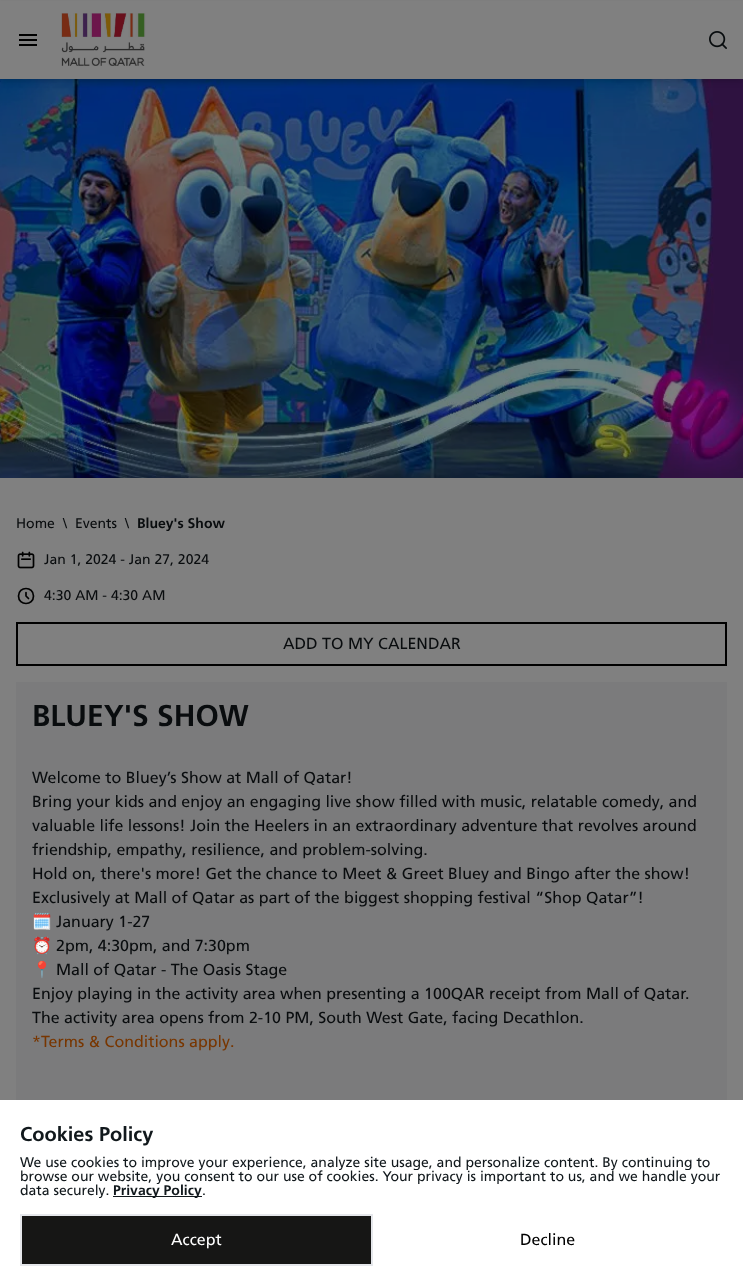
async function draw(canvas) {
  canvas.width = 743
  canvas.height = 1286
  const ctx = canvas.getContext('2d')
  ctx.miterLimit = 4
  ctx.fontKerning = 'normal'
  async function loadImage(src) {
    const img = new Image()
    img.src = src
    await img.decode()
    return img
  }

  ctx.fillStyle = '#808080'
  ctx.fillRect(0, 0, 743, 1286)
  ctx.drawImage(await loadImage('image3.png'), 0, 79, 743, 399)
  ctx.fillStyle = '#0000001a'
  ctx.filter = 'blur(2px)'
  ctx.beginPath()
  ctx.rect(2, 4, 739, 75)
  ctx.fill()
  ctx.filter = 'none'
  ctx.filter = 'blur(3px)'
  ctx.beginPath()
  ctx.rect(1, 5, 741, 77)
  ctx.fill()
  ctx.filter = 'none'
  ctx.fillStyle = '#808080'
  ctx.fillRect(0, 1, 743, 78)
  ctx.drawImage(await loadImage('image0.png'), 19, 34, 18, 12)
  ctx.drawImage(await loadImage('image1.png'), 61, 13, 85, 53)
  ctx.drawImage(await loadImage('image2.png'), 709, 31, 18, 18)
  ctx.font = '14px Frutiger'
  ctx.fillStyle = '#090c0e'
  ctx.fillText('Home', 16, 528)
  ctx.fillText('\\', 63, 528)
  ctx.fillText('Events', 75, 528)
  ctx.fillText('\\', 125, 528)
  ctx.font = 'bold 14px Frutiger'
  ctx.fillText('Bluey\'s Show', 137, 528)
  ctx.drawImage(await loadImage('image4.png'), 17, 551, 18, 18)
  ctx.font = '14px Frutiger'
  ctx.fillText('Jan 1, 2024 - Jan 27, 2024', 44, 564)
  ctx.beginPath()
  ctx.moveTo(26, 592.5)
  ctx.lineTo(26, 596)
  ctx.lineTo(28.5, 598.5)
  ctx.moveTo(33.5, 596)
  ctx.bezierCurveTo(33.5, 606, 18.5, 606, 18.5, 596)
  ctx.bezierCurveTo(18.5, 586, 33.5, 586, 33.5, 596)
  ctx.closePath()
  ctx.strokeStyle = '#000'
  ctx.lineWidth = 1.7
  ctx.lineCap = 'round'
  ctx.lineJoin = 'round'
  ctx.stroke()
  ctx.fillText('4:30 AM - 4:30 AM', 44, 600)
  ctx.lineWidth = 2
  ctx.lineJoin = 'miter'
  ctx.strokeRect(17, 623, 709, 42)
  ctx.font = '16px Frutiger'
  ctx.fillText('ADD TO MY CALENDAR', 283, 649)
  ctx.fillStyle = '#7b7b7c'
  ctx.fillRect(16, 682, 711, 418)
  ctx.font = 'bold 30px Frutiger'
  ctx.fillStyle = '#090c0e'
  ctx.fillText('BLUEY\'S SHOW', 32, 726)
  ctx.font = '16px Frutiger'
  ctx.fillText('Welcome to Bluey’s Show at Mall of Qatar!', 32, 783)
  ctx.fillText('Bring your kids and enjoy an engaging live show filled with music, relatable comedy, and', 32, 807)
  ctx.fillText('valuable life lessons! Join the Heelers in an extraordinary adventure that revolves around', 32, 831)
  ctx.fillText('friendship, empathy, resilience, and problem-solving.', 32, 855)
  ctx.fillText('Hold on, there\'s more! Get the chance to Meet & Greet Bluey and Bingo after the show!', 32, 879)
  ctx.fillText('Exclusively at Mall of Qatar as part of the biggest shopping festival “Shop Qatar”!', 32, 903)
  ctx.font = '16px Noto Color Emoji'
  ctx.fillText('🗓️', 32, 927)
  ctx.font = '16px Frutiger'
  ctx.fillText('January 1-27', 56, 927)
  ctx.font = '16px Noto Color Emoji'
  ctx.fillText('⏰', 32, 951)
  ctx.font = '16px Frutiger'
  ctx.fillText('2pm, 4:30pm, and 7:30pm', 56, 951)
  ctx.font = '16px Noto Color Emoji'
  ctx.fillText('📍', 32, 975)
  ctx.font = '16px Frutiger'
  ctx.fillText('Mall of Qatar - The Oasis Stage', 56, 975)
  ctx.fillText('Enjoy playing in the activity area when presenting a 100QAR receipt from Mall of Qatar.', 32, 999)
  ctx.fillText('The activity area opens from 2-10 PM, South West Gate, facing Decathlon.', 32, 1023)
  ctx.fillStyle = '#783600'
  ctx.fillText('*Terms & Conditions apply.', 32, 1047)
  ctx.fillStyle = '#fff'
  ctx.fillRect(0, 1100, 743, 186)
  ctx.font = 'bold 20px Frutiger'
  ctx.fillStyle = '#11181c'
  ctx.fillText('Cookies Policy', 20, 1141)
  ctx.font = '14px Frutiger'
  ctx.fillText('We use cookies to improve your experience, analyze site usage, and personalize content. By continuing to', 20, 1167)
  ctx.fillText('browse our website, you consent to our use of cookies. Your privacy is important to us, and we handle your', 20, 1181)
  ctx.fillText('data securely.', 20, 1195)
  ctx.fillRect(113, 1196, 89, 1)
  ctx.font = 'bold 14px Frutiger'
  ctx.fillText('Privacy Policy', 113, 1195)
  ctx.font = '14px Frutiger'
  ctx.fillText('.', 202, 1195)
  ctx.fillStyle = '#161615'
  ctx.beginPath()
  ctx.rect(21, 1215, 351, 50)
  ctx.fill()
  ctx.strokeStyle = '#e5e7eb'
  ctx.stroke()
  ctx.font = '16px Frutiger'
  ctx.fillStyle = '#fff'
  ctx.fillText('Accept', 171, 1245)
  ctx.fillStyle = '#000'
  ctx.fillText('Decline', 520, 1245)
}

draw(document.querySelector('canvas'))
